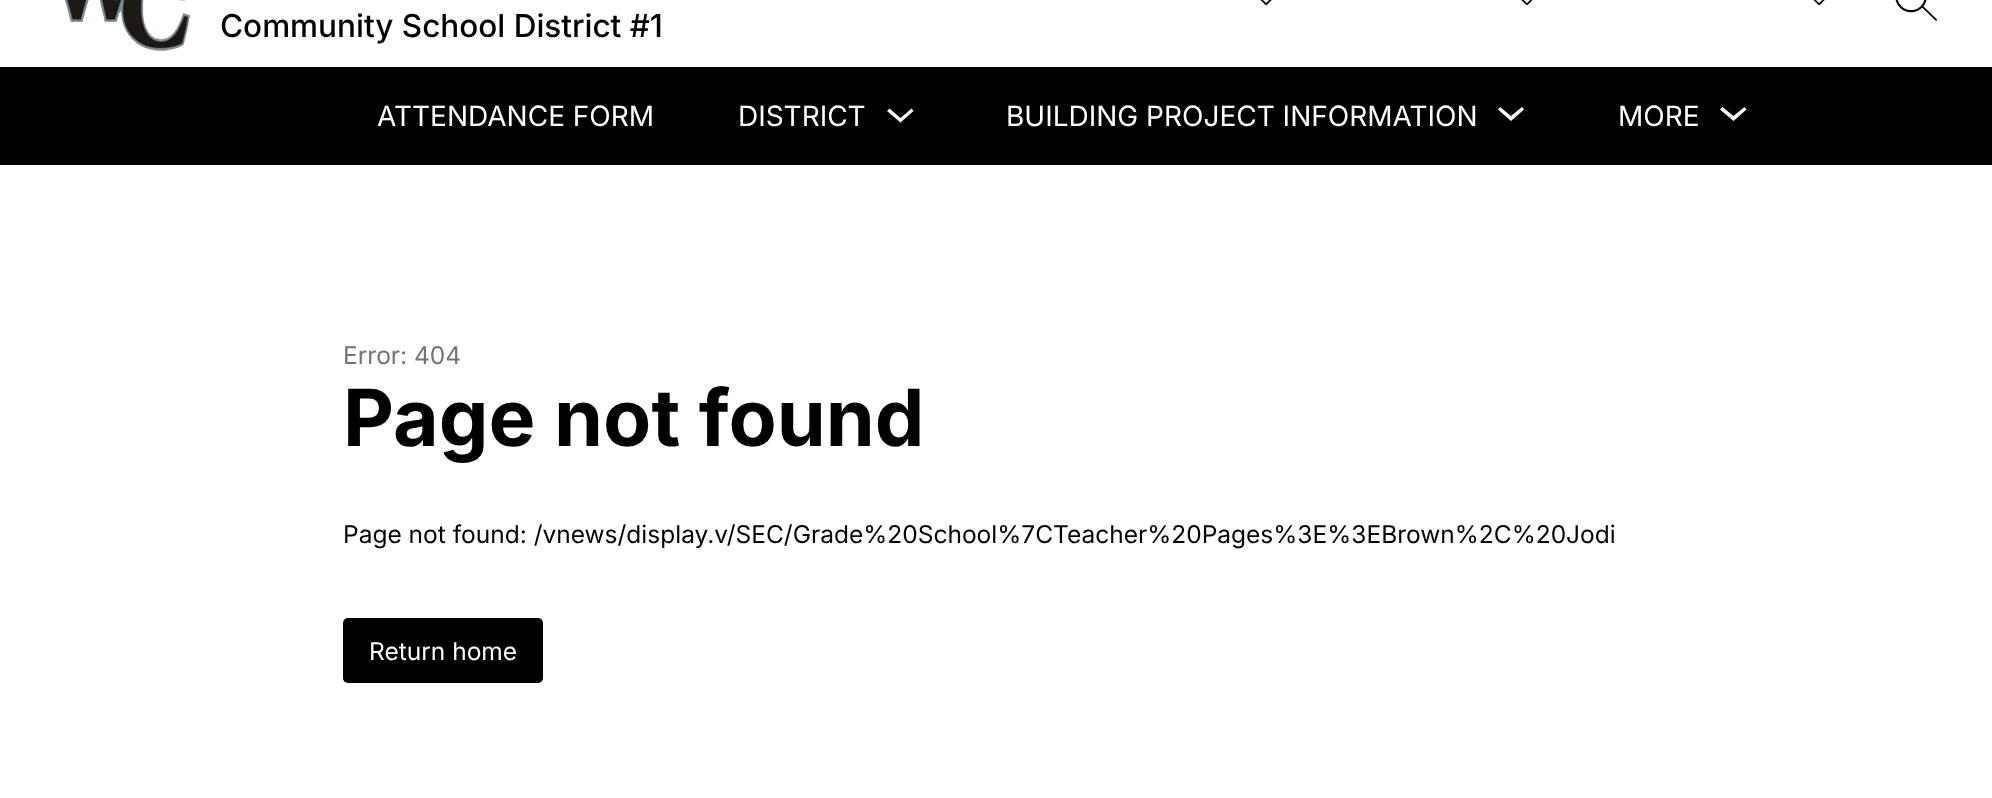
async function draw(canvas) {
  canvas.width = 1992
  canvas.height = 798
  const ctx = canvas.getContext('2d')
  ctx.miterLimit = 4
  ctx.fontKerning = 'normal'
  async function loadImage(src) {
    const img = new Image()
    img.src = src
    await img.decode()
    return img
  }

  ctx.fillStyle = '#fff'
  ctx.fillRect(0, 0, 1992, 798)
  ctx.fillStyle = '#000'
  ctx.fillRect(0, 67, 1992, 98)
  ctx.fillStyle = '#0000001a'
  ctx.filter = 'blur(9px)'
  ctx.beginPath()
  ctx.rect(0, -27, 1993, 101)
  ctx.fill()
  ctx.filter = 'none'
  ctx.fillStyle = '#fff'
  ctx.fillRect(0, 0, 1992, 67)
  ctx.drawImage(await loadImage('image0.png'), 1260, 0, 12, 6)
  ctx.drawImage(await loadImage('image1.png'), 1521, 0, 12, 6)
  ctx.drawImage(await loadImage('image0.png'), 1813, 0, 12, 6)
  ctx.drawImage(await loadImage('image2.png'), 1895, 0, 42, 21)
  ctx.drawImage(await loadImage('image3.png'), 64, 0, 127, 51)
  ctx.font = '500 31.5px Inter'
  ctx.fillStyle = '#000'
  ctx.fillText('Community School District #1', 220, 37)
  ctx.font = '28px Inter'
  ctx.fillStyle = '#fff'
  ctx.fillText('ATTENDANCE FORM', 377, 126)
  ctx.fillText('DISTRICT', 738, 126)
  ctx.beginPath()
  ctx.moveTo(911.5, 108.5)
  ctx.lineTo(900.5, 118)
  ctx.lineTo(889.5, 108.5)
  ctx.lineTo(887, 111)
  ctx.lineTo(900.5, 122.5)
  ctx.lineTo(913.5, 111)
  ctx.closePath()
  ctx.fill('evenodd')
  ctx.fillText('BUILDING PROJECT INFORMATION', 1006, 126)
  ctx.beginPath()
  ctx.moveTo(1522, 107)
  ctx.lineTo(1511, 116)
  ctx.lineTo(1500, 107)
  ctx.lineTo(1498, 109.5)
  ctx.lineTo(1511, 121)
  ctx.lineTo(1524, 109.5)
  ctx.closePath()
  ctx.fill('evenodd')
  ctx.fillText('MORE', 1618, 126)
  ctx.beginPath()
  ctx.moveTo(1744.5, 107)
  ctx.lineTo(1733.5, 116)
  ctx.lineTo(1722.5, 107)
  ctx.lineTo(1720, 109.5)
  ctx.lineTo(1733.5, 121)
  ctx.lineTo(1746.5, 109.5)
  ctx.closePath()
  ctx.fill('evenodd')
  ctx.font = '24.5px Inter'
  ctx.fillStyle = '#747474'
  ctx.fillText('Error: 404', 343, 364)
  ctx.font = 'bold 78.75px Inter'
  ctx.fillStyle = '#000'
  ctx.fillText('Page not found', 343, 446)
  ctx.font = '24.5px Inter'
  ctx.fillText('Page not found: /vnews/display.v/SEC/Grade%20School%7CTeacher%20Pages%3E%3EBrown%2C%20Jodi', 343, 543)
  ctx.beginPath()
  ctx.roundRect(343, 618, 200, 65, 5)
  ctx.fill()
  ctx.fillStyle = '#fff'
  ctx.fillText('Return home', 369, 660)
}

draw(document.querySelector('canvas'))
